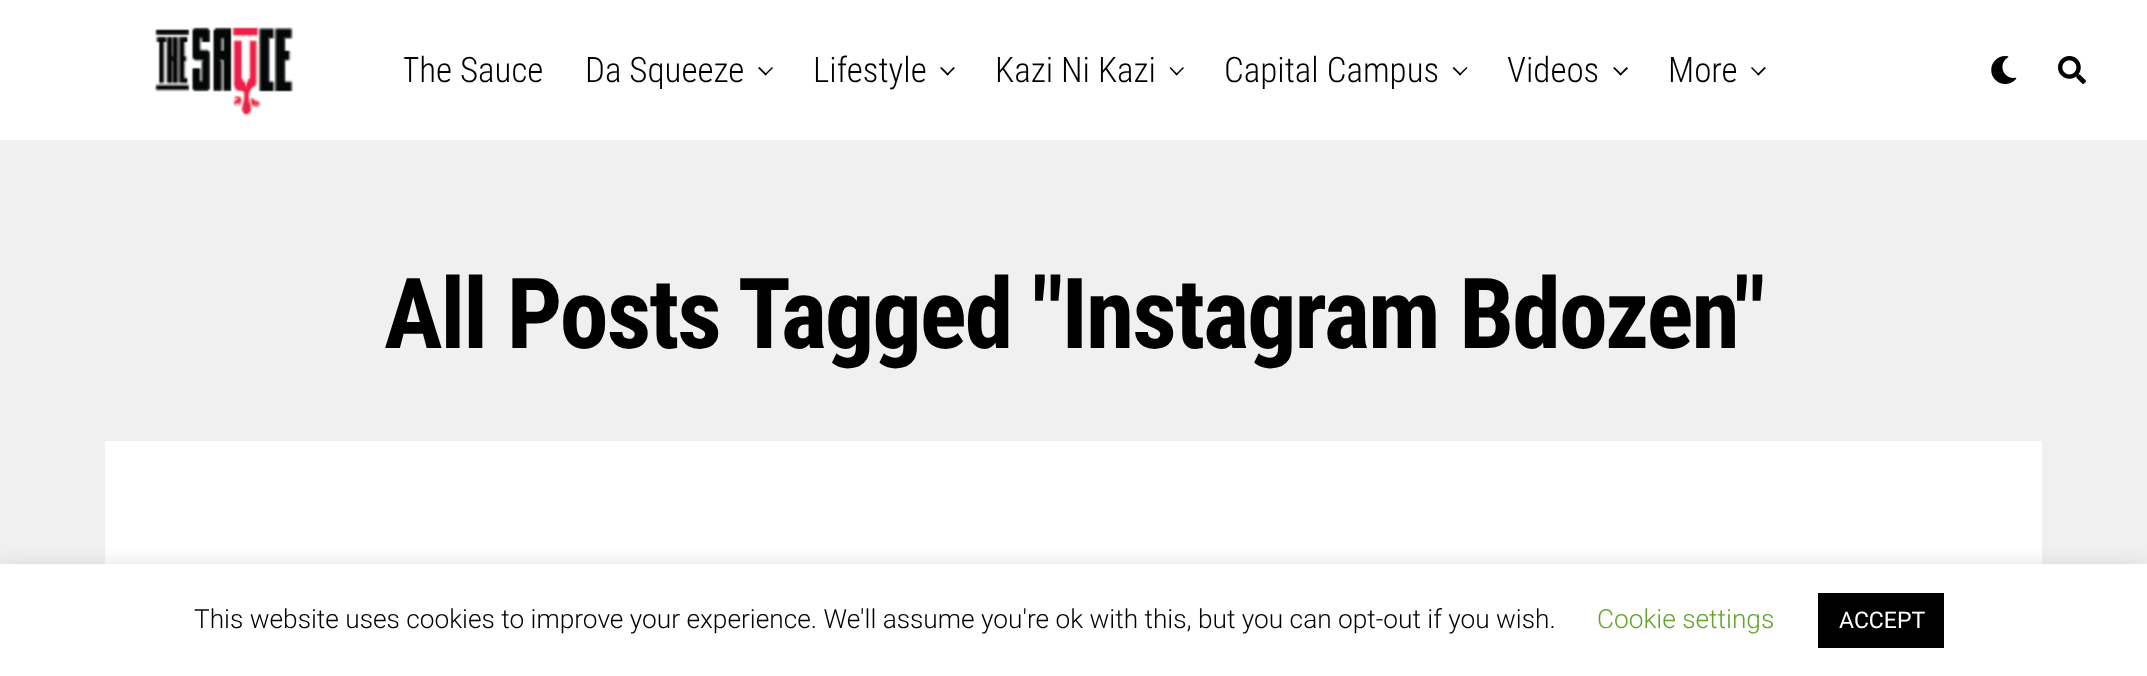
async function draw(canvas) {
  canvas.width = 2147
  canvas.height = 676
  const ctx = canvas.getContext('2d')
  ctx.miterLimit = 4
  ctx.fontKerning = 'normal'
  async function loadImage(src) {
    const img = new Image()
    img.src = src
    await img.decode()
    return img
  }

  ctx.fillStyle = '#f0f0f0'
  ctx.fillRect(0, 0, 2147, 676)
  ctx.fillStyle = '#fff'
  ctx.fillRect(0, 0, 2147, 140)
  ctx.font = '300 35px Roboto Condensed'
  ctx.fillStyle = '#000'
  ctx.fillText('The Sauce', 401, 82)
  ctx.drawImage(await loadImage('image0.png'), 154, 27, 251, 89)
  ctx.fillText('Da Squeeze', 585, 82)
  ctx.beginPath()
  ctx.moveTo(772, 67)
  ctx.lineTo(773, 68)
  ctx.lineTo(765.5, 75.5)
  ctx.lineTo(764.5, 74.5)
  ctx.closePath()
  ctx.fill()
  ctx.beginPath()
  ctx.moveTo(759.5, 67)
  ctx.lineTo(767, 74.5)
  ctx.lineTo(765.5, 75.5)
  ctx.lineTo(758, 68)
  ctx.closePath()
  ctx.fill()
  ctx.fillText('Lifestyle', 813, 82)
  ctx.beginPath()
  ctx.moveTo(953.5, 67)
  ctx.lineTo(955, 68)
  ctx.lineTo(947.5, 75.5)
  ctx.lineTo(946.5, 74.5)
  ctx.closePath()
  ctx.fill()
  ctx.beginPath()
  ctx.moveTo(941.5, 67)
  ctx.lineTo(949, 74.5)
  ctx.lineTo(947.5, 75.5)
  ctx.lineTo(940, 68)
  ctx.closePath()
  ctx.fill()
  ctx.fillText('Kazi Ni Kazi', 995, 82)
  ctx.beginPath()
  ctx.moveTo(1183, 67)
  ctx.lineTo(1184, 68)
  ctx.lineTo(1176.5, 75.5)
  ctx.lineTo(1175.5, 74.5)
  ctx.closePath()
  ctx.fill()
  ctx.beginPath()
  ctx.moveTo(1170.5, 67)
  ctx.lineTo(1178, 74.5)
  ctx.lineTo(1176.5, 75.5)
  ctx.lineTo(1169.5, 68)
  ctx.closePath()
  ctx.fill()
  ctx.fillText('Capital Campus', 1224, 82)
  ctx.beginPath()
  ctx.moveTo(1466.5, 67)
  ctx.lineTo(1467.5, 68)
  ctx.lineTo(1460, 75.5)
  ctx.lineTo(1459, 74.5)
  ctx.closePath()
  ctx.fill()
  ctx.beginPath()
  ctx.moveTo(1454, 67)
  ctx.lineTo(1461.5, 74.5)
  ctx.lineTo(1460, 75.5)
  ctx.lineTo(1452.5, 68)
  ctx.closePath()
  ctx.fill()
  ctx.fillText('Videos', 1507, 82)
  ctx.beginPath()
  ctx.moveTo(1626.5, 67)
  ctx.lineTo(1628, 68.5)
  ctx.lineTo(1620.5, 75.5)
  ctx.lineTo(1619.5, 74.5)
  ctx.closePath()
  ctx.fill()
  ctx.beginPath()
  ctx.moveTo(1614.5, 67)
  ctx.lineTo(1622, 74.5)
  ctx.lineTo(1620.5, 75.5)
  ctx.lineTo(1613, 68)
  ctx.closePath()
  ctx.fill()
  ctx.fillText('More', 1668, 82)
  ctx.beginPath()
  ctx.moveTo(1764.5, 67)
  ctx.lineTo(1766, 68)
  ctx.lineTo(1758.5, 75.5)
  ctx.lineTo(1757, 74.5)
  ctx.closePath()
  ctx.fill()
  ctx.beginPath()
  ctx.moveTo(1752, 67)
  ctx.lineTo(1759.5, 74.5)
  ctx.lineTo(1758.5, 75.5)
  ctx.lineTo(1751, 68)
  ctx.closePath()
  ctx.fill()
  ctx.drawImage(await loadImage('image1.png'), 1991, 56, 26, 28)
  ctx.drawImage(await loadImage('image2.png'), 2058, 56, 28, 28)
  ctx.letterSpacing = '-1.95px'
  ctx.font = 'bold 98px Roboto Condensed'
  ctx.fillText('All Posts Tagged "Instagram Bdozen"', 384, 348)
  ctx.fillStyle = '#fff'
  ctx.fillRect(105, 441, 1937, 123)
  ctx.fillStyle = '#acabab4d'
  ctx.filter = 'blur(9px)'
  ctx.beginPath()
  ctx.rect(0, 562, 2147, 114)
  ctx.fill()
  ctx.filter = 'none'
  ctx.fillStyle = '#fff'
  ctx.fillRect(0, 564, 2147, 112)
  ctx.letterSpacing = '0px'
  ctx.font = '300 26.25px Roboto'
  ctx.fillStyle = '#000'
  ctx.fillText('This website uses cookies to improve your experience. We\'ll assume you\'re ok with this, but you can opt-out if you wish.', 194, 628)
  ctx.fillStyle = '#62a329'
  ctx.fillText('Cookie settings', 1597, 628)
  ctx.fillStyle = '#000'
  ctx.fillRect(1818, 593, 126, 55)
  ctx.font = '23px Roboto'
  ctx.fillStyle = '#fff'
  ctx.fillText('ACCEPT', 1839, 628)
}

draw(document.querySelector('canvas'))
